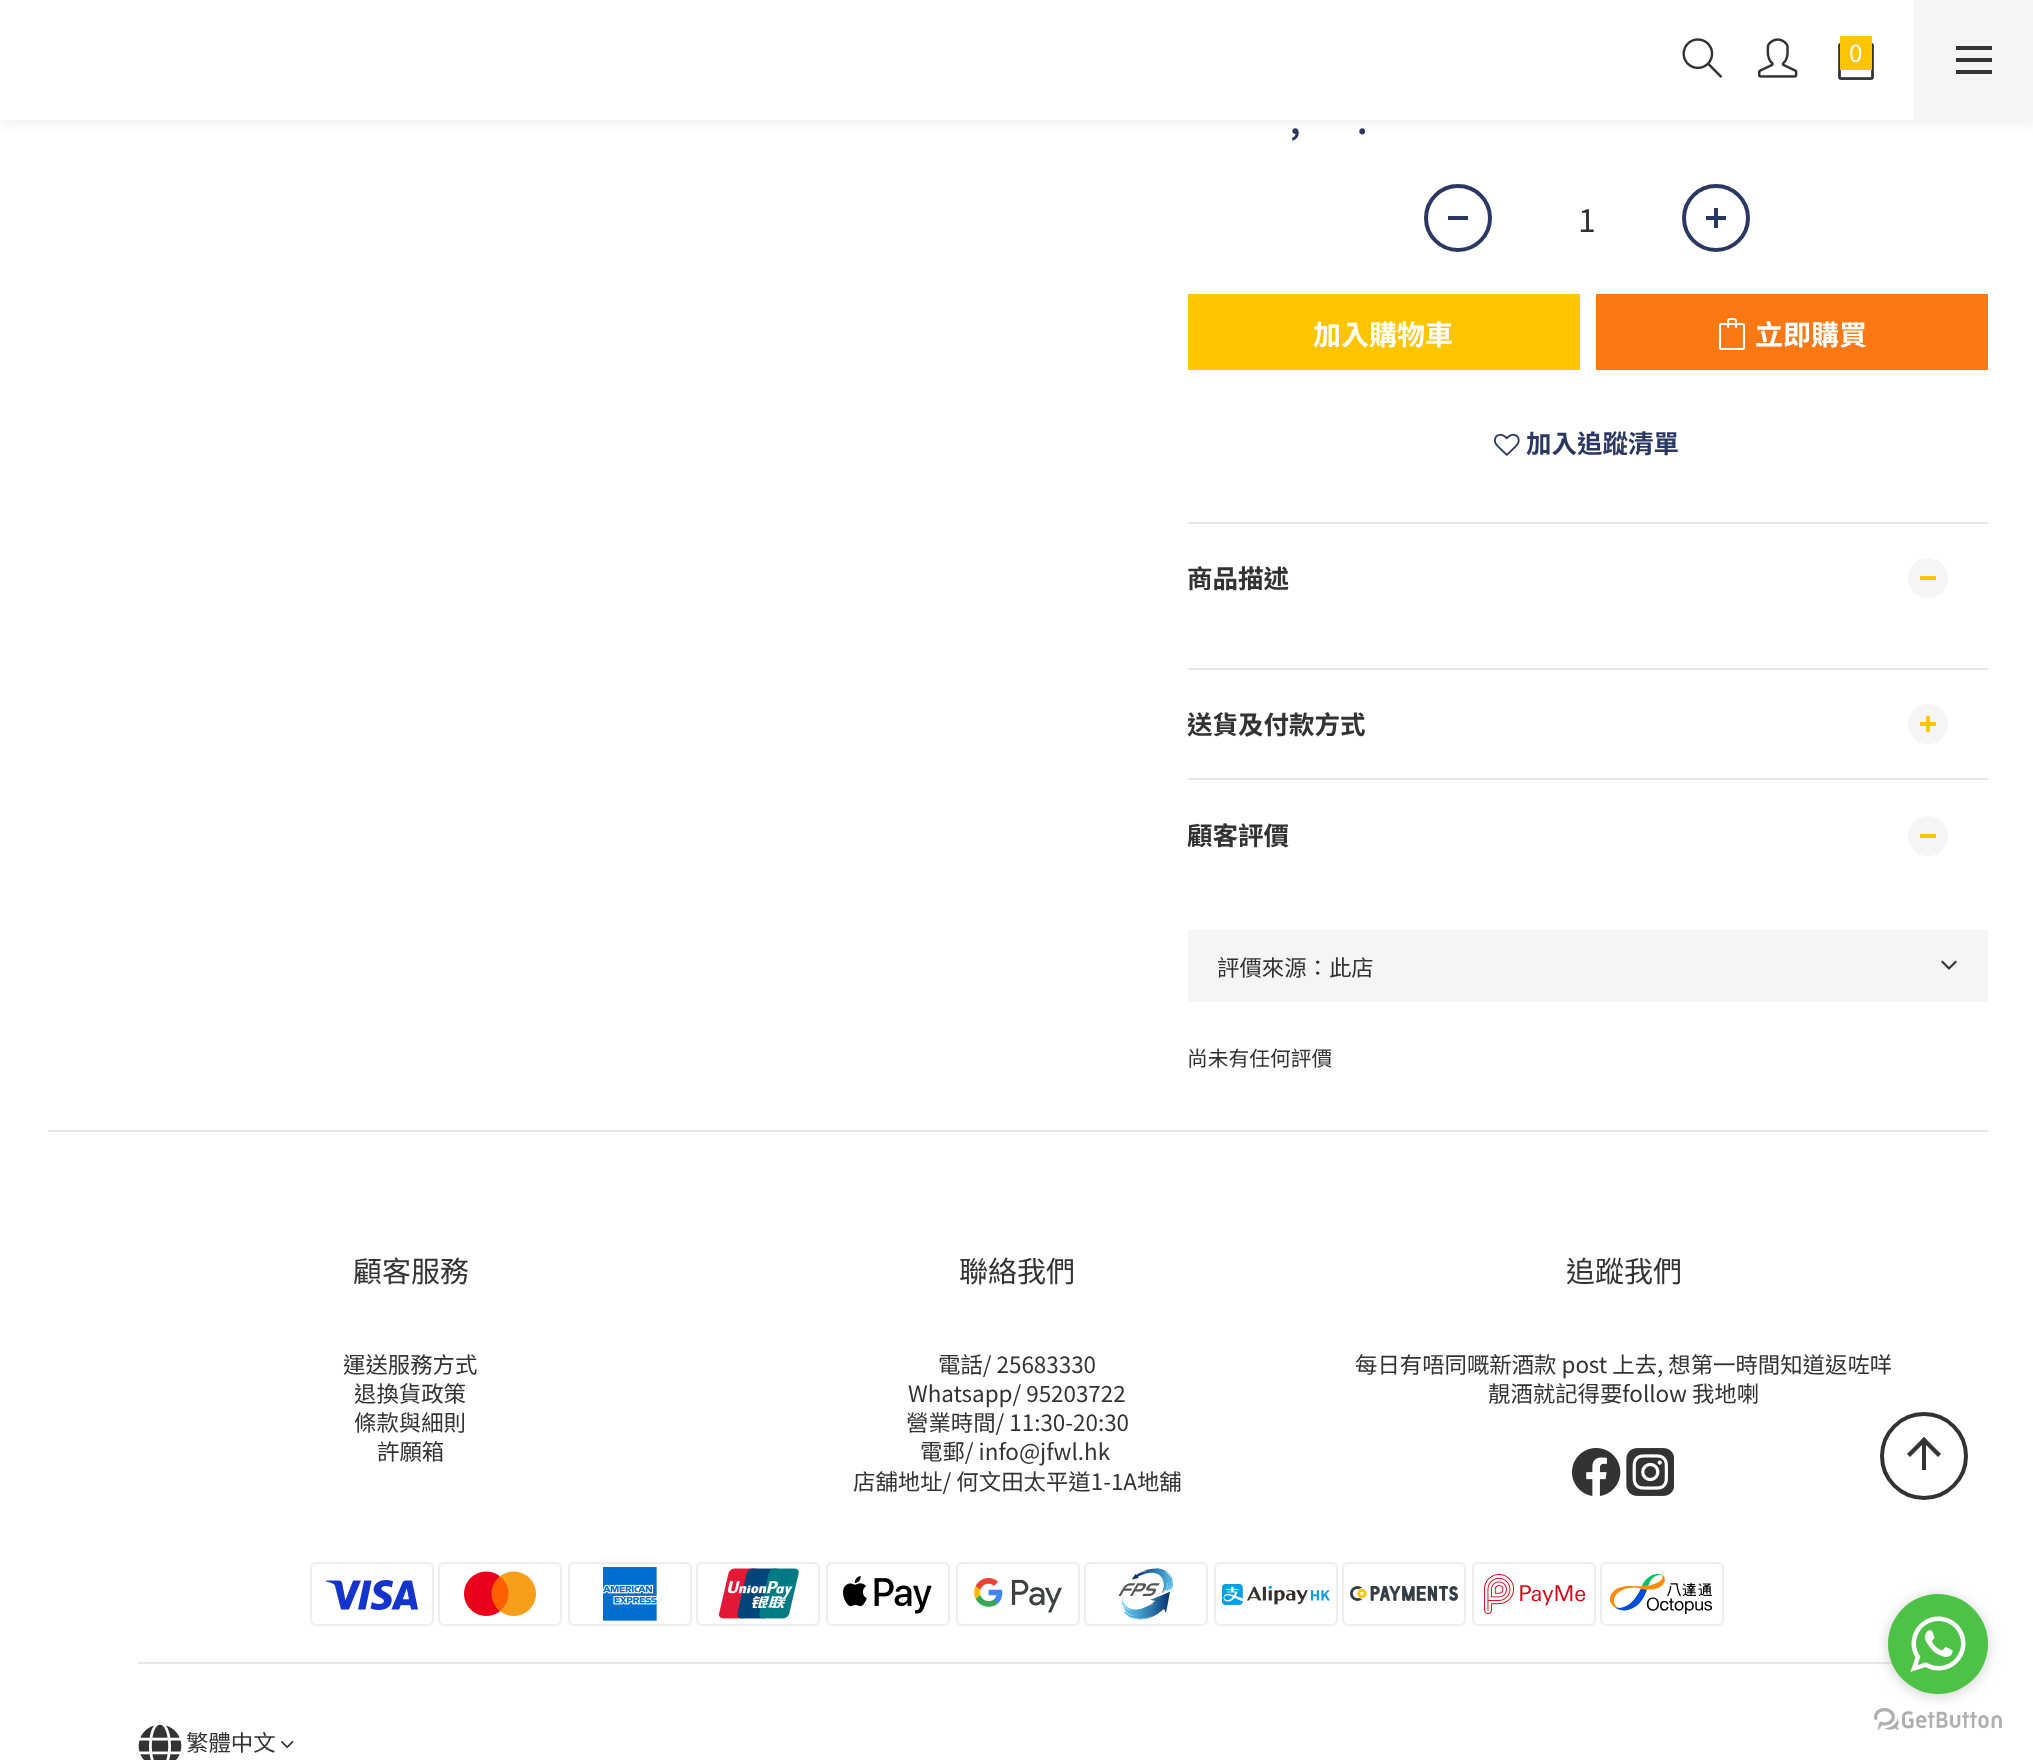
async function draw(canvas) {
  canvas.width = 2033
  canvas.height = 1760
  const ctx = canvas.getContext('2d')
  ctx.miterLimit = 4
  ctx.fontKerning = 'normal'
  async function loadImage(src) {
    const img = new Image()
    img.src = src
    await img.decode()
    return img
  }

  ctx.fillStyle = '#fff'
  ctx.fillRect(0, 0, 2033, 1760)
  ctx.fillStyle = '#0000000f'
  ctx.filter = 'blur(6px)'
  ctx.beginPath()
  ctx.rect(0, 4, 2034, 120)
  ctx.fill()
  ctx.filter = 'none'
  ctx.fillStyle = '#fff'
  ctx.fillRect(0, 0, 1914, 120)
  ctx.drawImage(await loadImage('image0.png'), 1682, 38, 40, 40)
  ctx.drawImage(await loadImage('image1.png'), 1758, 38, 40, 40)
  ctx.drawImage(await loadImage('image2.png'), 1838, 43, 36, 37)
  ctx.fillStyle = '#fdc500'
  ctx.fillRect(1840, 36, 32, 34)
  ctx.font = '24px Noto Sans TC'
  ctx.fillStyle = '#fff'
  ctx.fillText('0', 1849, 62)
  ctx.fillStyle = '#f5f5f5'
  ctx.fillRect(1914, 0, 119, 120)
  ctx.fillStyle = '#333'
  ctx.fillRect(1956, 58, 36, 4)
  ctx.fillRect(1956, 46, 36, 4)
  ctx.fillRect(1956, 70, 36, 4)
  ctx.font = 'bold 32px Noto Sans TC'
  ctx.fillStyle = '#2b3864'
  ctx.fillText(',', 1290, 134)
  ctx.fillText('.', 1357, 134)
  ctx.beginPath()
  ctx.arc(1458, 218, 32, 0, 2 * Math.PI)
  ctx.strokeStyle = '#2b3864'
  ctx.lineWidth = 4
  ctx.stroke()
  ctx.fillRect(1448, 216, 20, 4)
  ctx.font = '32px Noto Sans TC'
  ctx.fillStyle = '#333'
  ctx.fillText('1', 1578, 232)
  ctx.beginPath()
  ctx.arc(1716, 218, 32, 0, 2 * Math.PI)
  ctx.stroke()
  ctx.fillStyle = '#2b3864'
  ctx.fillRect(1706, 216, 20, 4)
  ctx.fillRect(1714, 208, 4, 20)
  ctx.fillStyle = '#fdc500'
  ctx.fillRect(1188, 294, 392, 76)
  ctx.font = 'bold 28px Noto Sans TC'
  ctx.fillStyle = '#fff'
  ctx.fillText('加入購物車', 1313, 345)
  ctx.fillStyle = '#fb7813'
  ctx.fillRect(1596, 294, 392, 76)
  ctx.drawImage(await loadImage('image3.png'), 1719, 318, 26, 32)
  ctx.fillStyle = '#fff'
  ctx.fillText('立即購買', 1755, 345)
  ctx.drawImage(await loadImage('image4.png'), 1494, 433, 26, 23)
  ctx.font = 'bold 25.5px Noto Sans TC'
  ctx.fillStyle = '#2b3864'
  ctx.fillText('加入追蹤清單', 1526, 453)
  ctx.fillStyle = '#e6e6e6'
  ctx.fillRect(1188, 522, 800, 2)
  ctx.fillStyle = '#333'
  ctx.fillText('商品描述', 1187, 588)
  ctx.fillStyle = '#f5f5f5'
  ctx.beginPath()
  ctx.arc(1928, 578, 20, 0, 2 * Math.PI)
  ctx.fill()
  ctx.fillStyle = '#fdc500'
  ctx.fillRect(1920, 576, 16, 4)
  ctx.fillStyle = '#e6e6e6'
  ctx.fillRect(1188, 668, 800, 2)
  ctx.fillStyle = '#333'
  ctx.fillText('送貨及付款方式', 1187, 734)
  ctx.fillStyle = '#f5f5f5'
  ctx.beginPath()
  ctx.arc(1928, 724, 20, 0, 2 * Math.PI)
  ctx.fill()
  ctx.fillStyle = '#fdc500'
  ctx.fillRect(1920, 722, 16, 4)
  ctx.fillRect(1926, 716, 4, 16)
  ctx.fillStyle = '#e6e6e6'
  ctx.fillRect(1188, 778, 800, 2)
  ctx.fillStyle = '#333'
  ctx.fillText('顧客評價', 1187, 845)
  ctx.fillStyle = '#f5f5f5'
  ctx.beginPath()
  ctx.arc(1928, 836, 20, 0, 2 * Math.PI)
  ctx.fill()
  ctx.fillStyle = '#fdc500'
  ctx.fillRect(1920, 834, 16, 4)
  ctx.fillStyle = '#f5f5f5'
  ctx.fillRect(1188, 930, 800, 72)
  ctx.font = '22.4px Noto Sans TC'
  ctx.fillStyle = '#333'
  ctx.fillText('評價來源：此店', 1217, 976)
  ctx.drawImage(await loadImage('image5.png'), 1941, 960, 16, 10)
  ctx.font = '20.75px Noto Sans TC'
  ctx.fillText('尚未有任何評價', 1187, 1066)
  ctx.fillStyle = '#e6e6e6'
  ctx.fillRect(48, 1130, 1940, 2)
  ctx.font = '29px Noto Sans TC'
  ctx.fillStyle = '#333'
  ctx.fillText('顧客服務', 353, 1282)
  ctx.font = '22.4px Noto Sans TC'
  ctx.fillText('運送服務方式', 343, 1373)
  ctx.fillText('退換貨政策', 354, 1402)
  ctx.fillText('條款與細則', 354, 1431)
  ctx.fillText('許願箱', 377, 1460)
  ctx.font = '29px Noto Sans TC'
  ctx.fillText('聯絡我們', 959, 1282)
  ctx.font = '22.4px Noto Sans TC'
  ctx.fillText('電話/ 25683330', 938, 1373)
  ctx.fillText('Whatsapp/ 95203722', 908, 1402)
  ctx.fillText('營業時間/ 11:30-20:30', 906, 1431)
  ctx.fillText('電郵/ info@jfwl.hk', 920, 1460)
  ctx.fillText('店舖地址/ 何文田太平道1-1A地舖', 853, 1490)
  ctx.font = '29px Noto Sans TC'
  ctx.fillText('追蹤我們', 1566, 1282)
  ctx.font = '22.4px Noto Sans TC'
  ctx.fillText('每日有唔同嘅新酒款 post 上去, 想第一時間知道返咗咩', 1355, 1373)
  ctx.fillText('靚酒就記得要follow 我地喇', 1488, 1402)
  ctx.drawImage(await loadImage('image6.png'), 1572, 1448, 49, 48)
  ctx.drawImage(await loadImage('image7.png'), 1626, 1448, 48, 48)
  ctx.drawImage(await loadImage('image8.png'), 310, 1562, 124, 64)
  ctx.drawImage(await loadImage('image9.png'), 438, 1562, 124, 64)
  ctx.drawImage(await loadImage('image10.png'), 568, 1562, 124, 64)
  ctx.drawImage(await loadImage('image11.png'), 696, 1562, 124, 64)
  ctx.drawImage(await loadImage('image12.png'), 826, 1562, 124, 64)
  ctx.drawImage(await loadImage('image13.png'), 956, 1562, 124, 64)
  ctx.drawImage(await loadImage('image14.png'), 1084, 1562, 124, 64)
  ctx.drawImage(await loadImage('image15.png'), 1214, 1562, 124, 64)
  ctx.drawImage(await loadImage('image16.png'), 1342, 1562, 124, 64)
  ctx.drawImage(await loadImage('image17.png'), 1472, 1562, 124, 64)
  ctx.drawImage(await loadImage('image18.png'), 1600, 1562, 124, 64)
  ctx.fillStyle = '#e6e6e6'
  ctx.fillRect(138, 1662, 1760, 2)
  ctx.drawImage(await loadImage('image19.png'), 138, 1724, 44, 36)
  ctx.fillStyle = '#333'
  ctx.fillText('繁體中文', 186, 1751)
  ctx.drawImage(await loadImage('image20.png'), 281, 1741, 13, 8)
  ctx.beginPath()
  ctx.arc(1924, 1456, 42, 0, 2 * Math.PI)
  ctx.strokeStyle = '#333'
  ctx.stroke()
  ctx.beginPath()
  ctx.moveTo(1924, 1437)
  ctx.lineTo(1941, 1454)
  ctx.lineTo(1938, 1457)
  ctx.lineTo(1921, 1440)
  ctx.closePath()
  ctx.fill()
  ctx.beginPath()
  ctx.moveTo(1924, 1437)
  ctx.lineTo(1927, 1440)
  ctx.lineTo(1910, 1457)
  ctx.lineTo(1907, 1454)
  ctx.closePath()
  ctx.fill()
  ctx.fillRect(1922, 1442, 4, 28)
  ctx.drawImage(await loadImage('image22.png'), 1874, 1708, 128, 22)
  ctx.fillStyle = '#88888866'
  ctx.filter = 'blur(7px)'
  ctx.beginPath()
  ctx.roundRect(1888, 1596, 100, 100, 50)
  ctx.fill()
  ctx.filter = 'none'
  ctx.fillStyle = '#4dc247'
  ctx.beginPath()
  ctx.arc(1938, 1644, 50, 0, 2 * Math.PI)
  ctx.fill()
  ctx.drawImage(await loadImage('image21.png'), 1910, 1616, 56, 56)
}

draw(document.querySelector('canvas'))
